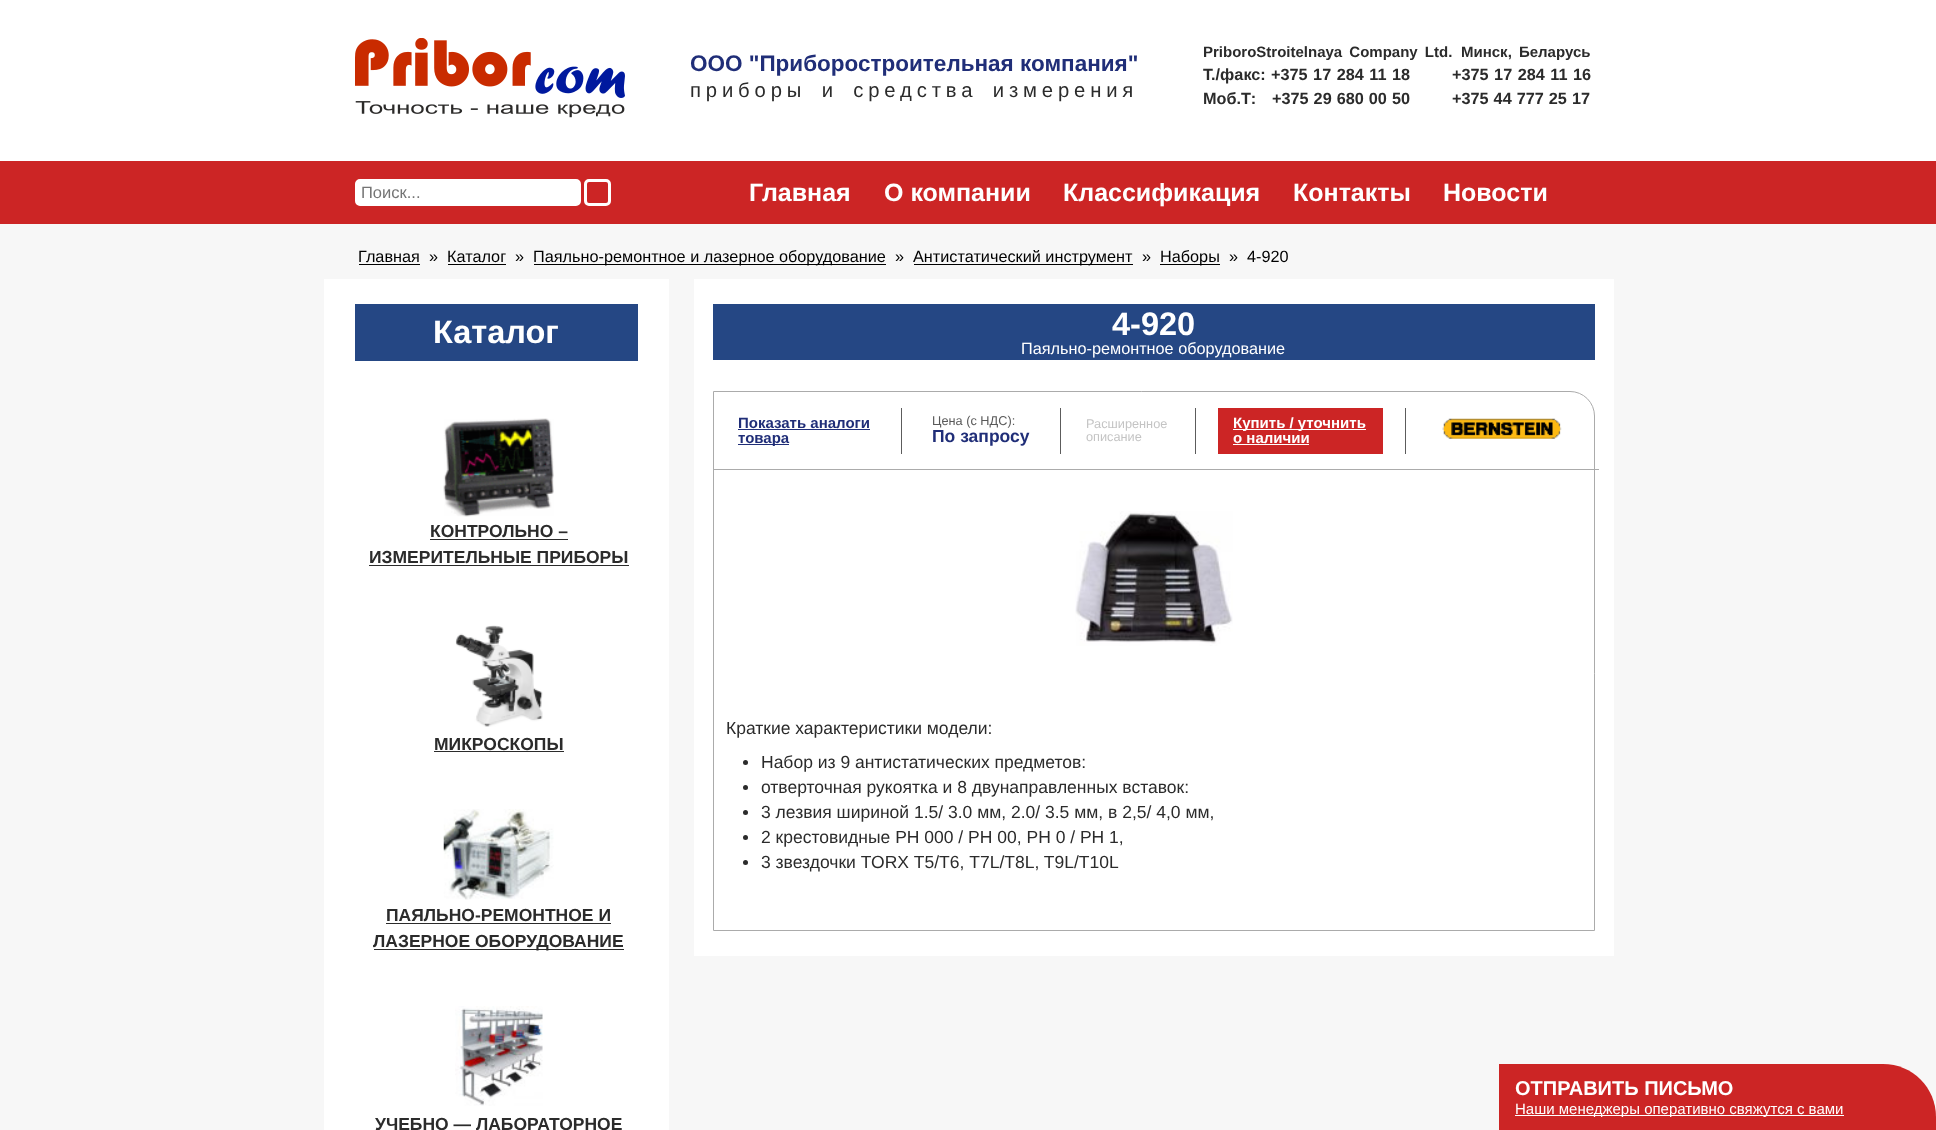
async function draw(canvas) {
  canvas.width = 1936
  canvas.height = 1130
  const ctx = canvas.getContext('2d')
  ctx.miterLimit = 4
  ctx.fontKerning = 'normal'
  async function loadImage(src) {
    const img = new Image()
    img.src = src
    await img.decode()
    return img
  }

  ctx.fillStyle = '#f7f7f7'
  ctx.fillRect(0, 0, 1936, 1130)
  ctx.fillStyle = '#fff'
  ctx.fillRect(0, 0, 1936, 161)
  ctx.drawImage(await loadImage('image0.png'), 355, 38, 270, 80)
  ctx.font = 'bold 22.5px Liberation Sans'
  ctx.fillStyle = '#202e78'
  ctx.fillText('ООО "Приборостроительная компания"', 690, 71)
  ctx.letterSpacing = '4.85px'
  ctx.wordSpacing = '5px'
  ctx.font = '20.25px Liberation Sans'
  ctx.fillStyle = '#2b2b2b'
  ctx.fillText('приборы и средства измерения', 690, 97)
  ctx.letterSpacing = '0px'
  ctx.wordSpacing = '3px'
  ctx.font = 'bold 15px Liberation Sans'
  ctx.fillText('PriboroStroitelnaya Company Ltd.', 1203, 57)
  ctx.fillText('Минск, Беларусь', 1461, 57)
  ctx.wordSpacing = '0px'
  ctx.font = 'bold 16.25px Liberation Sans'
  ctx.fillText('Т./факс:', 1203, 80)
  ctx.wordSpacing = '1px'
  ctx.fillText('+375 17 284 11 18', 1271, 80)
  ctx.fillText('+375 17 284 11 16', 1452, 80)
  ctx.wordSpacing = '0px'
  ctx.fillText('Моб.Т:', 1203, 104)
  ctx.wordSpacing = '0.5px'
  ctx.fillText('+375 29 680 00 50', 1272, 104)
  ctx.fillText('+375 44 777 25 17', 1452, 104)
  ctx.fillStyle = '#cc2525'
  ctx.fillRect(0, 161, 1936, 63)
  ctx.fillStyle = '#fff'
  ctx.beginPath()
  ctx.roundRect(356.5, 180.5, 223, 24, 3.5)
  ctx.fill()
  ctx.strokeStyle = '#fff'
  ctx.lineWidth = 3
  ctx.stroke()
  ctx.wordSpacing = '0px'
  ctx.font = '16.5px Liberation Sans'
  ctx.fillStyle = '#757575'
  ctx.fillText('Поиск...', 361, 198)
  ctx.beginPath()
  ctx.roundRect(585.5, 180.5, 24, 24, 3.5)
  ctx.stroke()
  ctx.font = 'bold 25px Liberation Sans'
  ctx.fillStyle = '#fff'
  ctx.fillText('Главная', 749, 201)
  ctx.fillText('О компании', 884, 201)
  ctx.fillText('Классификация', 1063, 201)
  ctx.fillText('Контакты', 1293, 201)
  ctx.fillText('Новости', 1443, 201)
  ctx.font = '16.25px Liberation Sans'
  ctx.fillStyle = '#000'
  ctx.fillText('Главная', 358, 262)
  ctx.fillRect(359, 264, 61, 1)
  ctx.fillText('»', 429, 262)
  ctx.fillText('Каталог', 447, 262)
  ctx.fillRect(448, 264, 58, 1)
  ctx.fillText('»', 515, 262)
  ctx.fillRect(534, 264, 352, 1)
  ctx.fillText('Паяльно-ремонтное и лазерное оборудование', 533, 262)
  ctx.fillText('»', 895, 262)
  ctx.fillRect(914, 264, 219, 1)
  ctx.fillText('Антистатический инструмент', 913, 262)
  ctx.fillText('»', 1142, 262)
  ctx.fillRect(1160, 264, 60, 1)
  ctx.fillText('Наборы', 1160, 262)
  ctx.fillText('»', 1229, 262)
  ctx.fillText('4-920', 1247, 262)
  ctx.fillStyle = '#fff'
  ctx.fillRect(324, 279, 345, 851)
  ctx.fillStyle = '#254784'
  ctx.fillRect(355, 304, 283, 57)
  ctx.font = 'bold 32.5px Liberation Sans'
  ctx.fillStyle = '#fff'
  ctx.fillText('Каталог', 433, 343)
  ctx.drawImage(await loadImage('image1.png'), 443, 418, 111, 99)
  ctx.font = 'bold 17.5px Liberation Sans'
  ctx.fillStyle = '#2b2b2b'
  ctx.fillText('КОНТРОЛЬНО –', 430, 537)
  ctx.fillRect(430, 539, 138, 1)
  ctx.fillText('ИЗМЕРИТЕЛЬНЫЕ ПРИБОРЫ', 369, 563)
  ctx.fillRect(369, 565, 260, 1)
  ctx.drawImage(await loadImage('image2.png'), 455, 625, 88, 102)
  ctx.fillText('МИКРОСКОПЫ', 434, 750)
  ctx.fillRect(434, 751, 130, 1)
  ctx.drawImage(await loadImage('image3.png'), 443, 809, 111, 91)
  ctx.fillText('ПАЯЛЬНО-РЕМОНТНОЕ И', 386, 921)
  ctx.fillRect(386, 923, 225, 1)
  ctx.fillRect(374, 949, 250, 1)
  ctx.fillText('ЛАЗЕРНОЕ ОБОРУДОВАНИЕ', 373, 947)
  ctx.drawImage(await loadImage('image4.png'), 455, 1006, 88, 100)
  ctx.fillText('УЧЕБНО — ЛАБОРАТОРНОЕ', 375, 1130)
  ctx.fillStyle = '#fff'
  ctx.fillRect(694, 279, 920, 677)
  ctx.fillStyle = '#254784'
  ctx.fillRect(713, 304, 882, 56)
  ctx.font = 'bold 32.5px Liberation Sans'
  ctx.fillStyle = '#fff'
  ctx.fillText('4-920', 1112, 335)
  ctx.font = '16.25px Liberation Sans'
  ctx.fillText('Паяльно-ремонтное оборудование', 1021, 354)
  ctx.beginPath()
  ctx.roundRect(713.5, 391.5, 881, 539, [0, 24.5, 0, 0])
  ctx.strokeStyle = '#ababab'
  ctx.lineWidth = 1
  ctx.stroke()
  ctx.fillStyle = '#ababab'
  ctx.fillRect(714, 469, 885, 1)
  ctx.font = 'bold 15px Liberation Sans'
  ctx.fillStyle = '#202e78'
  ctx.fillText('Показать аналоги', 738, 428)
  ctx.fillRect(738, 429, 132, 1)
  ctx.fillRect(738, 444, 51, 1)
  ctx.fillText('товара', 738, 443)
  ctx.fillStyle = '#5c5c5c'
  ctx.fillRect(901, 408, 1, 46)
  ctx.font = '12.75px Liberation Sans'
  ctx.fillStyle = '#595959'
  ctx.fillText('Цена (с НДС):', 932, 425)
  ctx.font = 'bold 17.5px Liberation Sans'
  ctx.fillStyle = '#202e78'
  ctx.fillText('По запросу', 932, 442)
  ctx.fillStyle = '#5c5c5c'
  ctx.fillRect(1060, 408, 1, 46)
  ctx.font = '12.75px Liberation Sans'
  ctx.fillStyle = '#c4c4c4'
  ctx.fillText('Расширенное', 1086, 428)
  ctx.fillText('описание', 1086, 441)
  ctx.fillStyle = '#5c5c5c'
  ctx.fillRect(1195, 408, 1, 46)
  ctx.fillStyle = '#cc2525'
  ctx.fillRect(1218, 408, 165, 46)
  ctx.fillStyle = '#fff'
  ctx.fillRect(1233, 429, 133, 1)
  ctx.font = 'bold 15px Liberation Sans'
  ctx.fillText('Купить / уточнить', 1233, 428)
  ctx.fillText('о наличии', 1233, 443)
  ctx.fillRect(1233, 444, 76, 1)
  ctx.fillStyle = '#5c5c5c'
  ctx.fillRect(1405, 408, 1, 46)
  ctx.drawImage(await loadImage('image5.png'), 1442, 418, 120, 21)
  ctx.drawImage(await loadImage('image6.png'), 1075, 511, 158, 135)
  ctx.font = '17.5px Liberation Sans'
  ctx.fillStyle = '#2b2b2b'
  ctx.fillText('Краткие характеристики модели:', 726, 734)
  ctx.beginPath()
  ctx.arc(745.5, 762.5, 2.5, 0, 2 * Math.PI)
  ctx.fill()
  ctx.fillText('Набор из 9 антистатических предметов:', 761, 768)
  ctx.beginPath()
  ctx.arc(745.5, 787.5, 2.5, 0, 2 * Math.PI)
  ctx.fill()
  ctx.fillText('отверточная рукоятка и 8 двунаправленных вставок:', 761, 793)
  ctx.beginPath()
  ctx.arc(745.5, 812.5, 2.5, 0, 2 * Math.PI)
  ctx.fill()
  ctx.fillText('3 лезвия шириной 1.5/ 3.0 мм, 2.0/ 3.5 мм, в 2,5/ 4,0 мм,', 761, 818)
  ctx.beginPath()
  ctx.arc(745.5, 837.5, 2.5, 0, 2 * Math.PI)
  ctx.fill()
  ctx.fillText('2 крестовидные PH 000 / PH 00, PH 0 / PH 1,', 761, 843)
  ctx.beginPath()
  ctx.arc(745.5, 862.5, 2.5, 0, 2 * Math.PI)
  ctx.fill()
  ctx.fillText('3 звездочки TORX Т5/Т6, Т7L/Т8L, T9L/T10L', 761, 868)
  ctx.fillStyle = '#cc2525'
  ctx.beginPath()
  ctx.moveTo(1499, 1064)
  ctx.lineTo(1883, 1064)
  ctx.bezierCurveTo(1912.5, 1064, 1936, 1087.5, 1936, 1117)
  ctx.lineTo(1936, 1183)
  ctx.lineTo(1499, 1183)
  ctx.closePath()
  ctx.fill()
  ctx.font = 'bold 20px Liberation Sans'
  ctx.fillStyle = '#fff'
  ctx.fillText('ОТПРАВИТЬ ПИСЬМО', 1515, 1095)
  ctx.fillRect(1515, 1115, 329, 1)
  ctx.font = '15px Liberation Sans'
  ctx.fillText('Наши менеджеры оперативно свяжутся с вами', 1515, 1114)
}

draw(document.querySelector('canvas'))
